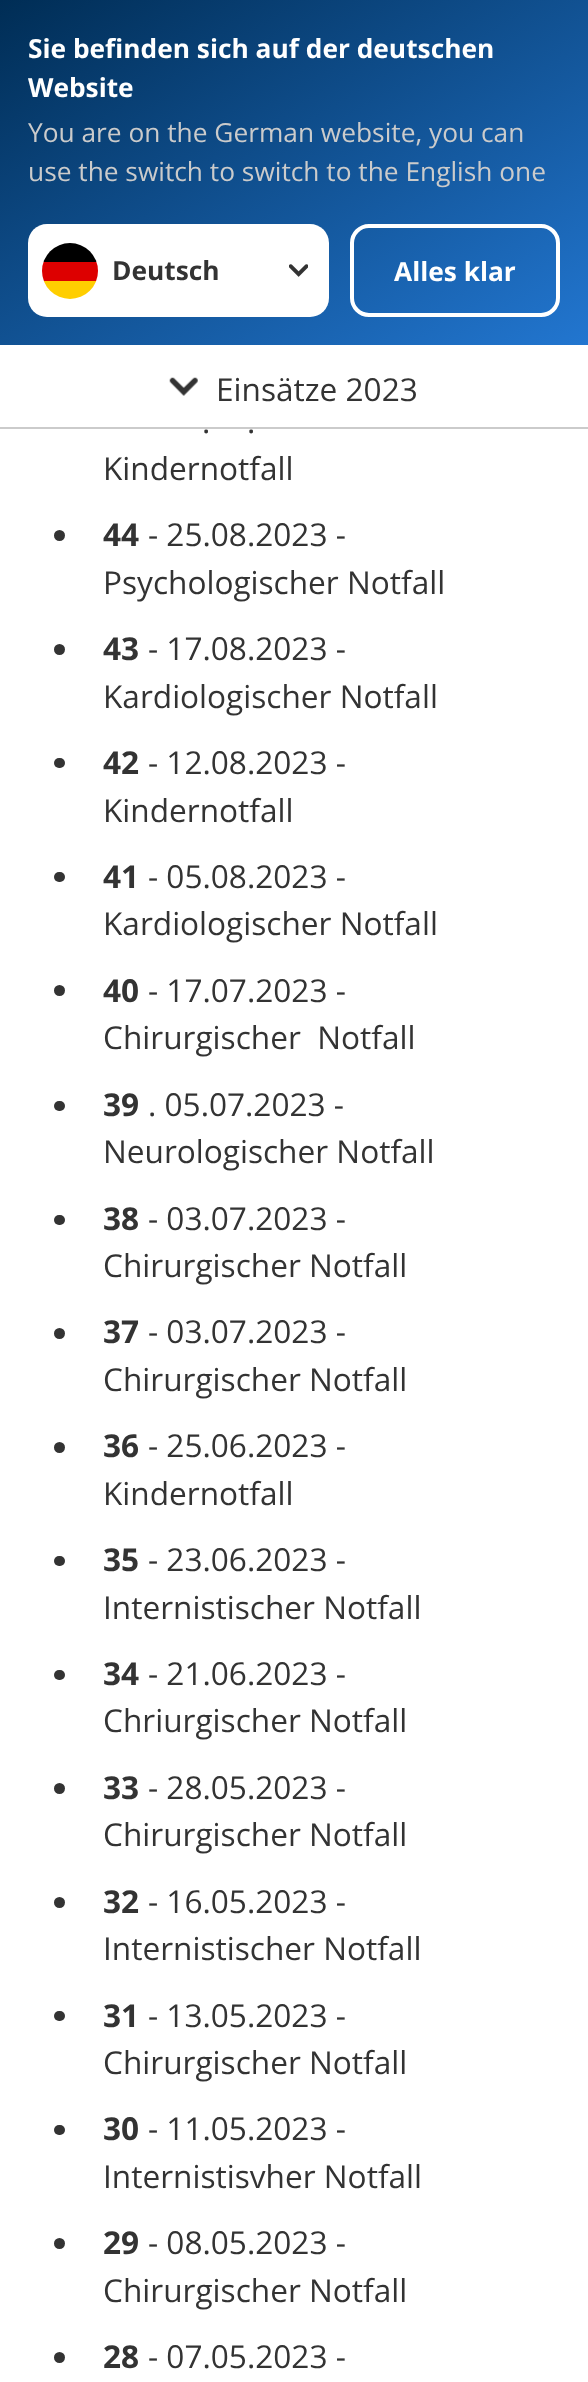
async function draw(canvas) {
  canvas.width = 588
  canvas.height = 2382
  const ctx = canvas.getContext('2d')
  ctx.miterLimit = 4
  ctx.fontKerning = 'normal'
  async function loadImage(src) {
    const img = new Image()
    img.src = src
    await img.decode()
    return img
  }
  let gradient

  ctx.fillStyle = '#fff'
  ctx.fillRect(0, 0, 588, 2382)
  gradient = ctx.createLinearGradient(144, -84, 444, 429)
  gradient.addColorStop(0, '#002d55')
  gradient.addColorStop(1, '#2276d0')
  ctx.fillStyle = gradient
  ctx.fillRect(0, 0, 588, 345)
  ctx.font = 'bold 26.3px Open Sans'
  ctx.fillStyle = '#fff'
  ctx.fillText('Sie befinden sich auf der deutschen', 28, 58)
  ctx.fillText('Website', 28, 97)
  ctx.font = '26.3px Open Sans'
  ctx.fillStyle = '#cbcbcb'
  ctx.fillText('You are on the German website, you can', 28, 142)
  ctx.fillText('use the switch to switch to the English one', 28, 181)
  ctx.fillStyle = '#fff'
  ctx.beginPath()
  ctx.roundRect(28, 224, 301, 93, 19)
  ctx.fill()
  ctx.save()
  ctx.beginPath()
  ctx.roundRect(42, 243, 56, 56, 28)
  ctx.clip()
  ctx.fillStyle = '#ffce00'
  ctx.fillRect(43, 281, 53, 18)
  ctx.fillStyle = '#000'
  ctx.fillRect(43, 243, 54, 19)
  ctx.fillStyle = '#d00'
  ctx.fillRect(42, 262, 56, 19)
  ctx.restore()
  ctx.drawImage(await loadImage('image0.png'), 289, 264, 19, 13)
  ctx.font = 'bold 26.3px Open Sans'
  ctx.fillStyle = '#333'
  ctx.fillText('Deutsch', 112, 280)
  ctx.beginPath()
  ctx.roundRect(352, 226, 206, 89, 17)
  ctx.strokeStyle = '#fff'
  ctx.lineWidth = 4
  ctx.stroke()
  ctx.fillStyle = '#fff'
  ctx.fillText('Alles klar', 394, 281)
  ctx.fillStyle = '#cbcbcb'
  ctx.fillRect(0, 427, 588, 2)
  ctx.drawImage(await loadImage('image1.png'), 169, 377, 29, 19)
  ctx.font = '31.6px Open Sans'
  ctx.fillStyle = '#333'
  ctx.fillText('Einsätze 2023', 216, 401)
  ctx.fillText('.', 202, 433)
  ctx.fillText('.', 247, 433)
  ctx.fillText('Kindernotfall', 103, 480)
  ctx.beginPath()
  ctx.arc(59.5, 535.5, 5.5, 0, 2 * Math.PI)
  ctx.fill()
  ctx.font = 'bold 31.6px Open Sans'
  ctx.fillText('44', 103, 546)
  ctx.font = '31.6px Open Sans'
  ctx.fillText('- 25.08.2023 -', 148, 546)
  ctx.fillText('Psychologischer Notfall', 103, 594)
  ctx.beginPath()
  ctx.arc(59.5, 649.5, 5.5, 0, 2 * Math.PI)
  ctx.fill()
  ctx.font = 'bold 31.6px Open Sans'
  ctx.fillText('43', 103, 660)
  ctx.font = '31.6px Open Sans'
  ctx.fillText('- 17.08.2023 -', 148, 660)
  ctx.fillText('Kardiologischer Notfall', 103, 708)
  ctx.beginPath()
  ctx.roundRect(54, 758, 11, 10, 5)
  ctx.fill()
  ctx.font = 'bold 31.6px Open Sans'
  ctx.fillText('42', 103, 774)
  ctx.font = '31.6px Open Sans'
  ctx.fillText('- 12.08.2023 -', 148, 774)
  ctx.fillText('Kindernotfall', 103, 822)
  ctx.beginPath()
  ctx.roundRect(54, 872, 11, 10, 5)
  ctx.fill()
  ctx.font = 'bold 31.6px Open Sans'
  ctx.fillText('41', 103, 888)
  ctx.font = '31.6px Open Sans'
  ctx.fillText('- 05.08.2023 -', 148, 888)
  ctx.fillText('Kardiologischer Notfall', 103, 935)
  ctx.beginPath()
  ctx.arc(59.5, 990.5, 5.5, 0, 2 * Math.PI)
  ctx.fill()
  ctx.font = 'bold 31.6px Open Sans'
  ctx.fillText('40', 103, 1002)
  ctx.font = '31.6px Open Sans'
  ctx.fillText('- 17.07.2023 -', 148, 1002)
  ctx.fillText('Chirurgischer  Notfall', 103, 1049)
  ctx.beginPath()
  ctx.roundRect(54, 1101, 11, 10, 5)
  ctx.fill()
  ctx.font = 'bold 31.6px Open Sans'
  ctx.fillText('39', 103, 1116)
  ctx.font = '31.6px Open Sans'
  ctx.fillText('. 05.07.2023 -', 148, 1116)
  ctx.fillText('Neurologischer Notfall', 103, 1163)
  ctx.beginPath()
  ctx.roundRect(54, 1215, 11, 10, 5)
  ctx.fill()
  ctx.font = 'bold 31.6px Open Sans'
  ctx.fillText('38', 103, 1230)
  ctx.font = '31.6px Open Sans'
  ctx.fillText('- 03.07.2023 -', 148, 1230)
  ctx.fillText('Chirurgischer Notfall', 103, 1277)
  ctx.beginPath()
  ctx.arc(59.5, 1333.5, 5.5, 0, 2 * Math.PI)
  ctx.fill()
  ctx.font = 'bold 31.6px Open Sans'
  ctx.fillText('37', 103, 1343)
  ctx.font = '31.6px Open Sans'
  ctx.fillText('- 03.07.2023 -', 148, 1343)
  ctx.fillText('Chirurgischer Notfall', 103, 1391)
  ctx.beginPath()
  ctx.arc(59.5, 1447.5, 5.5, 0, 2 * Math.PI)
  ctx.fill()
  ctx.font = 'bold 31.6px Open Sans'
  ctx.fillText('36', 103, 1457)
  ctx.font = '31.6px Open Sans'
  ctx.fillText('- 25.06.2023 -', 148, 1457)
  ctx.fillText('Kindernotfall', 103, 1505)
  ctx.beginPath()
  ctx.roundRect(54, 1556, 11, 10, 5)
  ctx.fill()
  ctx.font = 'bold 31.6px Open Sans'
  ctx.fillText('35', 103, 1571)
  ctx.font = '31.6px Open Sans'
  ctx.fillText('- 23.06.2023 -', 148, 1571)
  ctx.fillText('Internistischer Notfall', 103, 1619)
  ctx.beginPath()
  ctx.roundRect(54, 1670, 11, 10, 5)
  ctx.fill()
  ctx.font = 'bold 31.6px Open Sans'
  ctx.fillText('34', 103, 1685)
  ctx.font = '31.6px Open Sans'
  ctx.fillText('- 21.06.2023 -', 148, 1685)
  ctx.fillText('Chriurgischer Notfall', 103, 1732)
  ctx.beginPath()
  ctx.arc(59.5, 1788.5, 5.5, 0, 2 * Math.PI)
  ctx.fill()
  ctx.font = 'bold 31.6px Open Sans'
  ctx.fillText('33', 103, 1799)
  ctx.font = '31.6px Open Sans'
  ctx.fillText('- 28.05.2023 -', 148, 1799)
  ctx.fillText('Chirurgischer Notfall', 103, 1846)
  ctx.beginPath()
  ctx.arc(59.5, 1902.5, 5.5, 0, 2 * Math.PI)
  ctx.fill()
  ctx.font = 'bold 31.6px Open Sans'
  ctx.fillText('32', 103, 1913)
  ctx.font = '31.6px Open Sans'
  ctx.fillText('- 16.05.2023 -', 148, 1913)
  ctx.fillText('Internistischer Notfall', 103, 1960)
  ctx.beginPath()
  ctx.roundRect(54, 2011, 11, 10, 5)
  ctx.fill()
  ctx.font = 'bold 31.6px Open Sans'
  ctx.fillText('31', 103, 2027)
  ctx.font = '31.6px Open Sans'
  ctx.fillText('- 13.05.2023 -', 148, 2027)
  ctx.fillText('Chirurgischer Notfall', 103, 2074)
  ctx.beginPath()
  ctx.roundRect(54, 2125, 11, 10, 5)
  ctx.fill()
  ctx.font = 'bold 31.6px Open Sans'
  ctx.fillText('30', 103, 2140)
  ctx.font = '31.6px Open Sans'
  ctx.fillText('- 11.05.2023 -', 148, 2140)
  ctx.fillText('Internistisvher Notfall', 103, 2188)
  ctx.beginPath()
  ctx.arc(59.5, 2243.5, 5.5, 0, 2 * Math.PI)
  ctx.fill()
  ctx.font = 'bold 31.6px Open Sans'
  ctx.fillText('29', 103, 2254)
  ctx.font = '31.6px Open Sans'
  ctx.fillText('- 08.05.2023 -', 148, 2254)
  ctx.fillText('Chirurgischer Notfall', 103, 2302)
  ctx.beginPath()
  ctx.arc(59.5, 2357.5, 5.5, 0, 2 * Math.PI)
  ctx.fill()
  ctx.font = 'bold 31.6px Open Sans'
  ctx.fillText('28', 103, 2368)
  ctx.font = '31.6px Open Sans'
  ctx.fillText('- 07.05.2023 -', 148, 2368)
}

draw(document.querySelector('canvas'))
